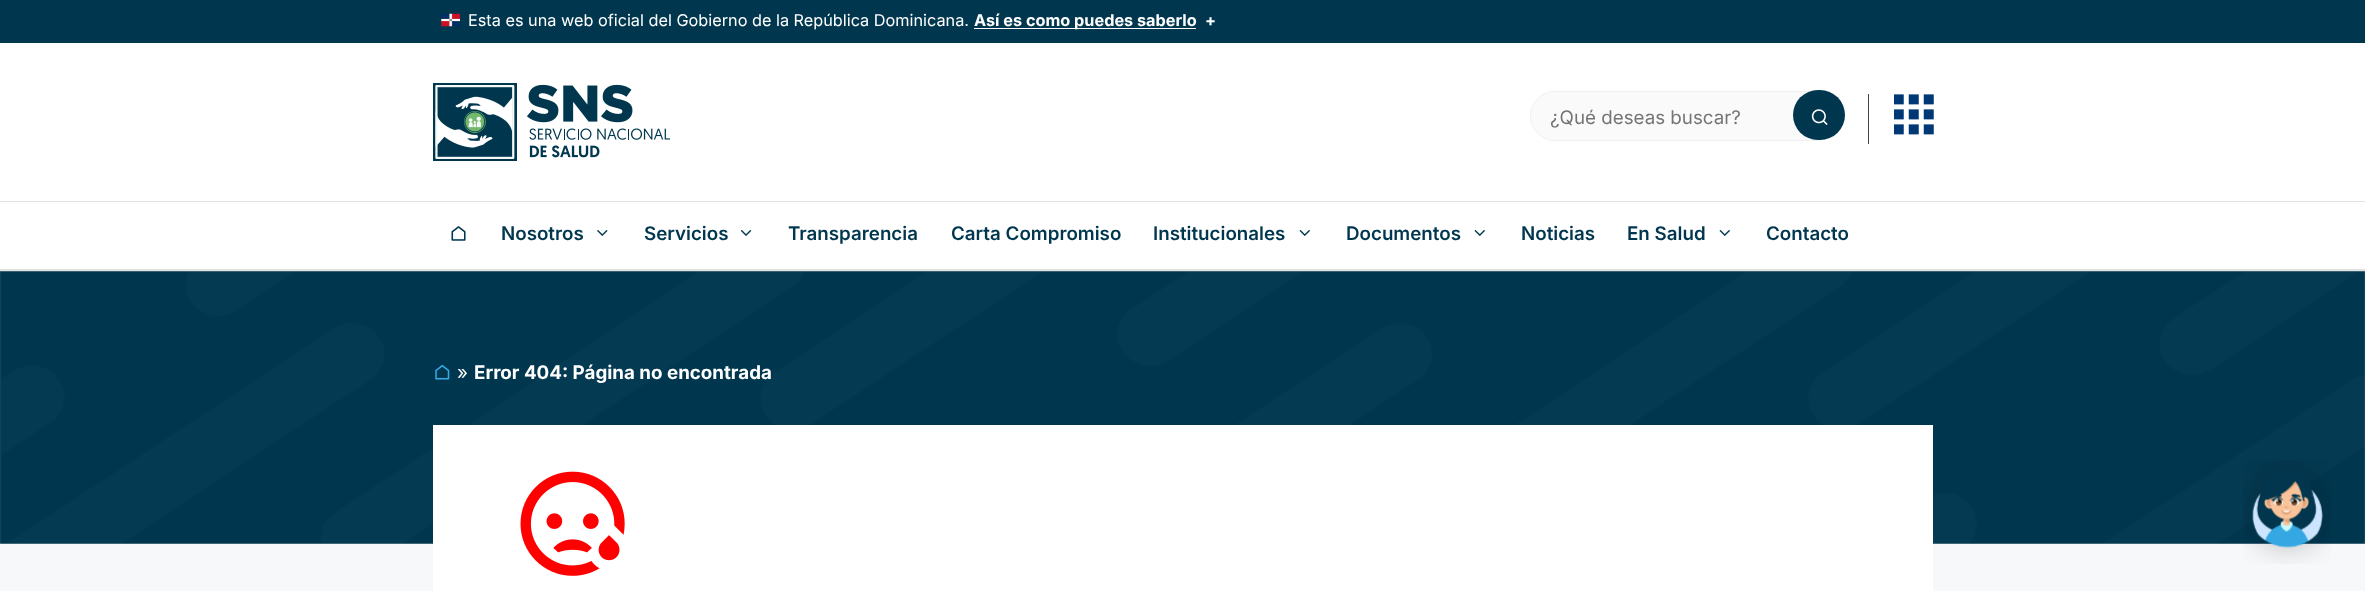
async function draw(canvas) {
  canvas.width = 2365
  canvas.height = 591
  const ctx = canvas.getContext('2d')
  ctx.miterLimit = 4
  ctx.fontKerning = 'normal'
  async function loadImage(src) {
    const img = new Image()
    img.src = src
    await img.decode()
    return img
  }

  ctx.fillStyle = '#f7f8f9'
  ctx.fillRect(0, 0, 2365, 591)
  ctx.fillStyle = '#00374f'
  ctx.fillRect(0, 0, 2365, 43)
  ctx.drawImage(await loadImage('image0.png'), 441, 13, 19, 14)
  ctx.font = '16.25px Inter'
  ctx.fillStyle = '#fff'
  ctx.fillText('Esta es una web oficial del Gobierno de la República Dominicana.', 468, 26)
  ctx.fillRect(974, 28, 222, 1)
  ctx.font = 'bold 16.25px Inter'
  ctx.fillText('Así es como puedes saberlo', 974, 26)
  ctx.fillText('+', 1205, 26)
  ctx.fillRect(0, 43, 2365, 158)
  ctx.drawImage(await loadImage('image1.png'), 433, 83, 237, 78)
  ctx.fillStyle = '#fafafa'
  ctx.beginPath()
  ctx.roundRect(1530.5, 91.5, 307, 49, 24.5)
  ctx.fill()
  ctx.strokeStyle = '#f0f0f0'
  ctx.stroke()
  ctx.font = '18.75px Inter'
  ctx.fillStyle = '#757575'
  ctx.fillText('¿Qué deseas buscar?', 1550, 124)
  ctx.fillStyle = '#00374f'
  ctx.beginPath()
  ctx.roundRect(1793, 90, 52, 50, 25)
  ctx.fill()
  ctx.drawImage(await loadImage('image2.png'), 1811, 109, 17, 16)
  ctx.fillStyle = '#444'
  ctx.fillRect(1868, 94, 1, 50)
  ctx.drawImage(await loadImage('image3.png'), 1894, 94, 40, 41)
  ctx.fillStyle = '#fff'
  ctx.fillRect(0, 202, 2365, 67)
  ctx.fillStyle = '#e1e1e1'
  ctx.fillRect(0, 201, 2365, 1)
  ctx.fillRect(0, 269, 2365, 3)
  ctx.drawImage(await loadImage('image4.png'), 451, 226, 15, 15)
  ctx.font = '600 18.75px Inter'
  ctx.fillStyle = '#00374f'
  ctx.fillText('Nosotros', 501, 240)
  ctx.drawImage(await loadImage('image5.png'), 597, 230, 11, 6)
  ctx.fillText('Servicios', 644, 240)
  ctx.drawImage(await loadImage('image6.png'), 740, 230, 12, 6)
  ctx.fillText('Transparencia', 788, 240)
  ctx.fillText('Carta Compromiso', 951, 240)
  ctx.fillText('Institucionales', 1153, 240)
  ctx.drawImage(await loadImage('image7.png'), 1299, 230, 11, 6)
  ctx.fillText('Documentos', 1346, 240)
  ctx.drawImage(await loadImage('image7.png'), 1474, 230, 11, 6)
  ctx.fillText('Noticias', 1521, 240)
  ctx.fillText('En Salud', 1627, 240)
  ctx.drawImage(await loadImage('image7.png'), 1719, 230, 11, 6)
  ctx.fillText('Contacto', 1766, 240)
  ctx.drawImage(await loadImage('image8.png'), 0, 271, 2365, 273)
  ctx.drawImage(await loadImage('image9.png'), 435, 364, 15, 16)
  ctx.font = '18.75px Inter'
  ctx.fillStyle = '#fff'
  ctx.fillText('»', 457, 379)
  ctx.font = 'bold 18.75px Inter'
  ctx.fillText('Error 404: Página no encontrada', 474, 379)
  ctx.fillRect(433, 425, 1500, 166)
  ctx.drawImage(await loadImage('image10.png'), 520, 471, 105, 105)
  ctx.drawImage(await loadImage('image11.png'), 2243, 460, 88, 104)
}

draw(document.querySelector('canvas'))
